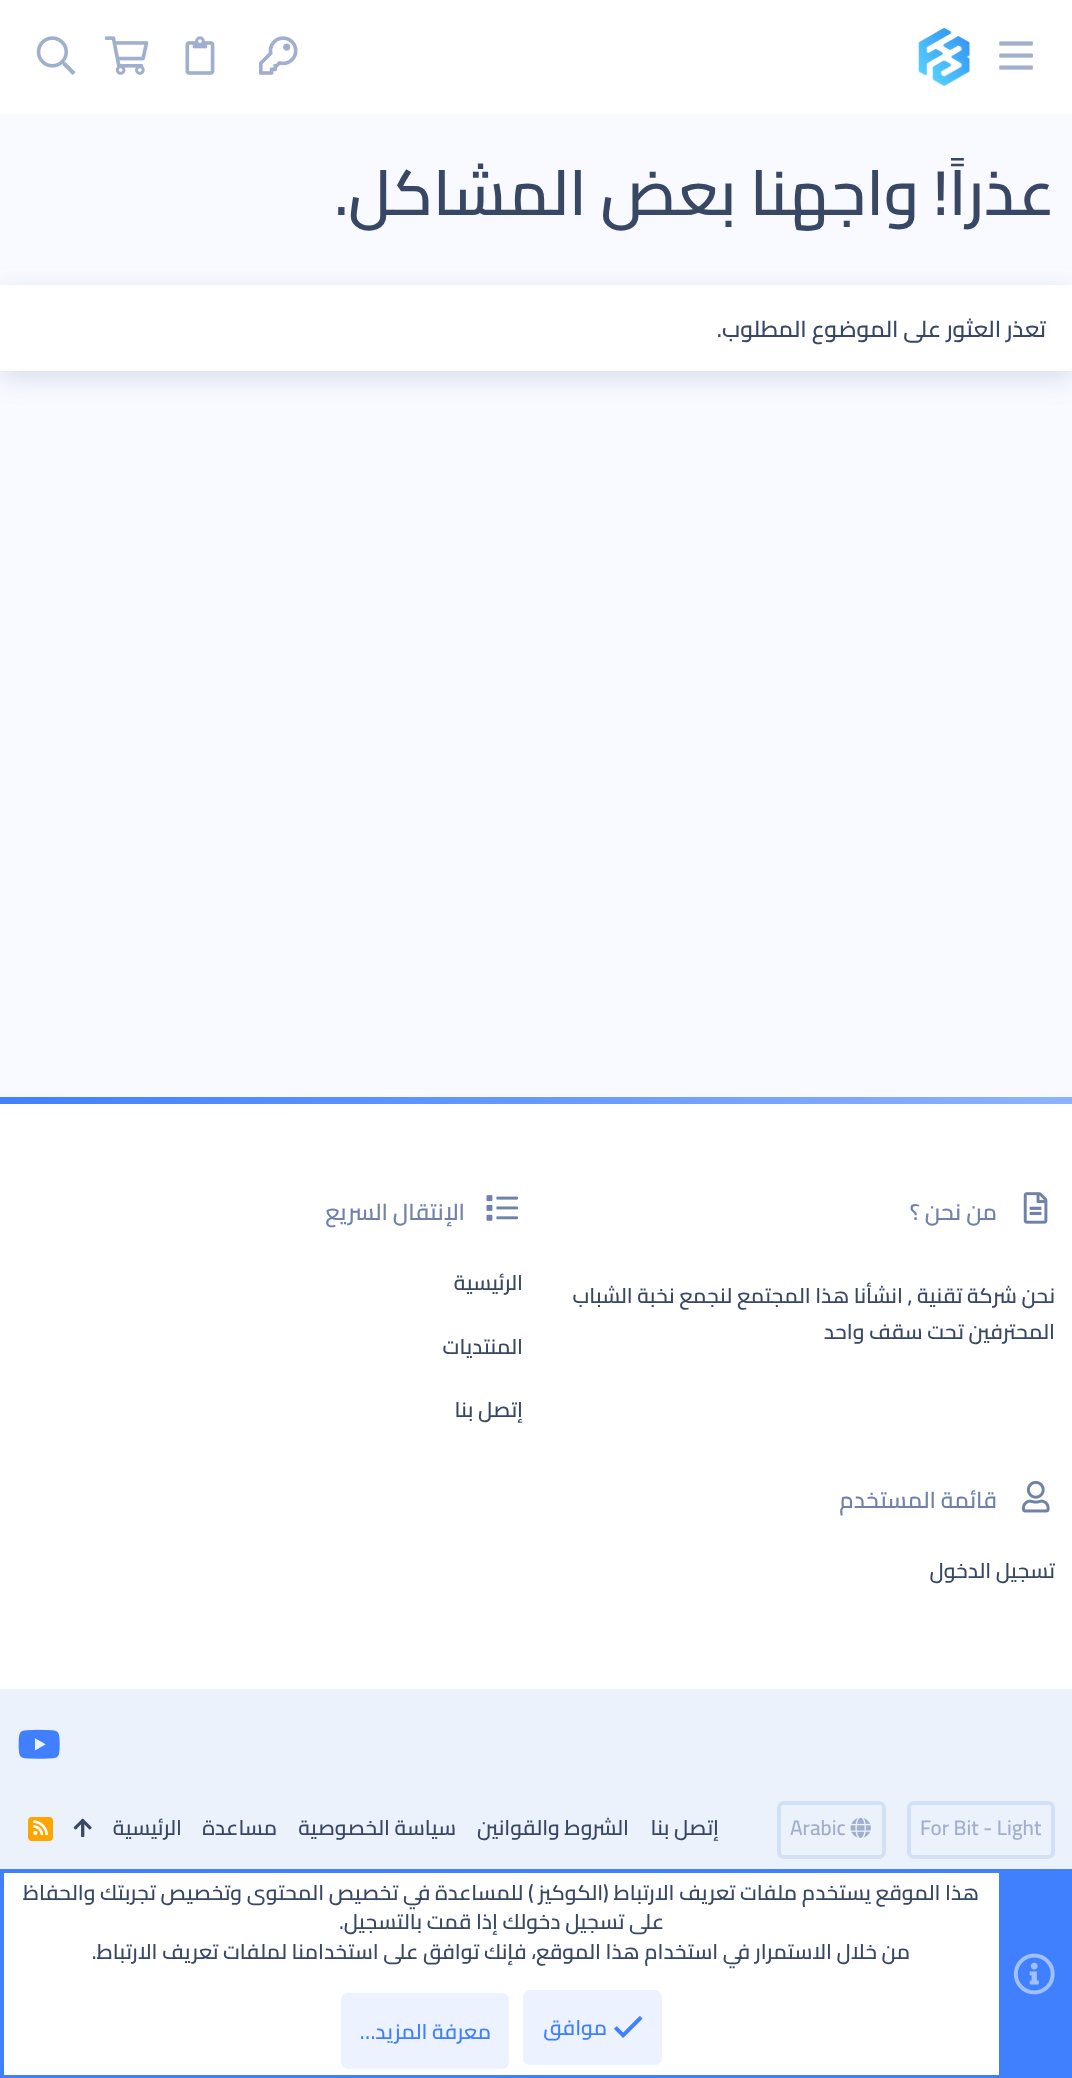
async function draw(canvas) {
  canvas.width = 1072
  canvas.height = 2078
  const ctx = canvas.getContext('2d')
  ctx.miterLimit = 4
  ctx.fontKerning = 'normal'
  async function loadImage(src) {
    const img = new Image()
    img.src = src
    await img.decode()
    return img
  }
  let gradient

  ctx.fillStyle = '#f8faff'
  ctx.fillRect(0, 0, 1072, 2078)
  ctx.fillStyle = '#fff'
  ctx.fillRect(0, 0, 1072, 114)
  ctx.drawImage(await loadImage('image0.png'), 999, 41, 34, 29)
  ctx.drawImage(await loadImage('image1.png'), 918, 28, 52, 58)
  ctx.drawImage(await loadImage('image2.png'), 259, 36, 39, 39)
  ctx.drawImage(await loadImage('image3.png'), 185, 36, 30, 39)
  ctx.drawImage(await loadImage('image4.png'), 105, 36, 44, 39)
  ctx.drawImage(await loadImage('image5.png'), 36, 36, 40, 39)
  ctx.direction = 'rtl'
  ctx.font = '600 63px Cairo'
  ctx.fillStyle = '#384764'
  ctx.fillText('عذراً! واجهنا بعض المشاكل.', 1055, 215)
  ctx.fillStyle = '#586a9933'
  ctx.filter = 'blur(13px)'
  ctx.beginPath()
  ctx.rect(0, 292, 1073, 86)
  ctx.fill()
  ctx.filter = 'none'
  ctx.fillStyle = '#fff'
  ctx.fillRect(0, 285, 1072, 86)
  ctx.font = '600 22.75px Cairo'
  ctx.fillStyle = '#384764'
  ctx.fillText('تعذر العثور على الموضوع المطلوب.', 1046, 337)
  ctx.fillStyle = '#ecf2fb'
  ctx.fillRect(0, 1689, 1072, 180)
  ctx.fillStyle = '#fff'
  ctx.fillRect(0, 1104, 1072, 585)
  gradient = ctx.createLinearGradient(0, 1101, 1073, 1101)
  gradient.addColorStop(0, '#4080ff')
  gradient.addColorStop(1, '#8db3ff')
  ctx.fillStyle = gradient
  ctx.fillRect(0, 1097, 1072, 7)
  ctx.drawImage(await loadImage('image6.png'), 1023, 1192, 25, 32)
  ctx.fillStyle = '#7082a7'
  ctx.fillText('من نحن ؟', 997, 1220)
  ctx.font = '600 21px Cairo'
  ctx.fillStyle = '#384764'
  ctx.fillText('نحن شركة تقنية , انشأنا هذا المجتمع لنجمع نخبة الشباب', 1055, 1303)
  ctx.fillText('المحترفين تحت سقف واحد', 1055, 1339)
  ctx.drawImage(await loadImage('image7.png'), 486, 1195, 32, 26)
  ctx.font = '600 22.75px Cairo'
  ctx.fillStyle = '#7082a7'
  ctx.fillText('الإنتقال السريع', 465, 1220)
  ctx.font = '600 21px Cairo'
  ctx.fillStyle = '#384764'
  ctx.fillText('الرئيسية', 523, 1290)
  ctx.fillText('المنتديات', 523, 1354)
  ctx.fillText('إتصل بنا', 523, 1417)
  ctx.drawImage(await loadImage('image8.png'), 1022, 1480, 28, 33)
  ctx.font = '600 22.75px Cairo'
  ctx.fillStyle = '#7082a7'
  ctx.fillText('قائمة المستخدم', 997, 1508)
  ctx.font = '600 21px Cairo'
  ctx.fillStyle = '#384764'
  ctx.fillText('تسجيل الدخول', 1055, 1578)
  ctx.drawImage(await loadImage('image9.png'), 18, 1729, 42, 30)
  ctx.beginPath()
  ctx.roundRect(909, 1803, 144, 54, 5)
  ctx.strokeStyle = '#d3e1f6'
  ctx.lineWidth = 4
  ctx.stroke()
  ctx.direction = 'ltr'
  ctx.fillStyle = '#a0afce'
  ctx.fillText('For Bit - Light', 920, 1835)
  ctx.beginPath()
  ctx.roundRect(779, 1803, 105, 54, 5)
  ctx.stroke()
  ctx.drawImage(await loadImage('image10.png'), 850, 1817, 21, 21)
  ctx.fillText('Arabic', 790, 1835)
  ctx.direction = 'rtl'
  ctx.fillStyle = '#384764'
  ctx.fillText('إتصل بنا', 719, 1835)
  ctx.fillText('الشروط والقوانين', 629, 1835)
  ctx.fillText('سياسة الخصوصية', 456, 1835)
  ctx.fillText('مساعدة', 277, 1835)
  ctx.fillText('الرئيسية', 182, 1835)
  ctx.drawImage(await loadImage('image11.png'), 73, 1818, 19, 20)
  ctx.fillStyle = '#ffa500'
  ctx.beginPath()
  ctx.roundRect(28, 1817, 25, 24, 4)
  ctx.fill()
  ctx.drawImage(await loadImage('image12.png'), 33, 1820, 15, 16)
  ctx.fillStyle = '#fff'
  ctx.fillRect(4, 1873, 995, 202)
  ctx.strokeStyle = '#4080ff'
  ctx.strokeRect(2, 1871, 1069, 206)
  ctx.fillStyle = '#4080ff'
  ctx.fillRect(999, 1873, 70, 202)
  ctx.drawImage(await loadImage('image13.png'), 1013, 1953, 42, 42)
  ctx.fillStyle = '#384764'
  ctx.fillText('هذا الموقع يستخدم ملفات تعريف الارتباط (الكوكيز ) للمساعدة في تخصيص المحتوى وتخصيص تجربتك والحفاظ', 979, 1900)
  ctx.fillText('على تسجيل دخولك إذا قمت بالتسجيل.', 664, 1929)
  ctx.fillText('من خلال الاستمرار في استخدام هذا الموقع، فإنك توافق على استخدامنا لملفات تعريف الارتباط.', 910, 1959)
  ctx.fillStyle = '#ecf2ff'
  ctx.beginPath()
  ctx.roundRect(523, 1990, 139, 75, 7)
  ctx.fill()
  ctx.drawImage(await loadImage('image14.png'), 614, 2016, 29, 22)
  ctx.fillStyle = '#4080ff'
  ctx.fillText('موافق', 607, 2035)
  ctx.fillStyle = '#ecf2ff'
  ctx.beginPath()
  ctx.roundRect(341, 1993, 168, 76, 7)
  ctx.fill()
  ctx.fillStyle = '#4080ff'
  ctx.fillText('معرفة المزيد…', 491, 2039)
}

draw(document.querySelector('canvas'))
